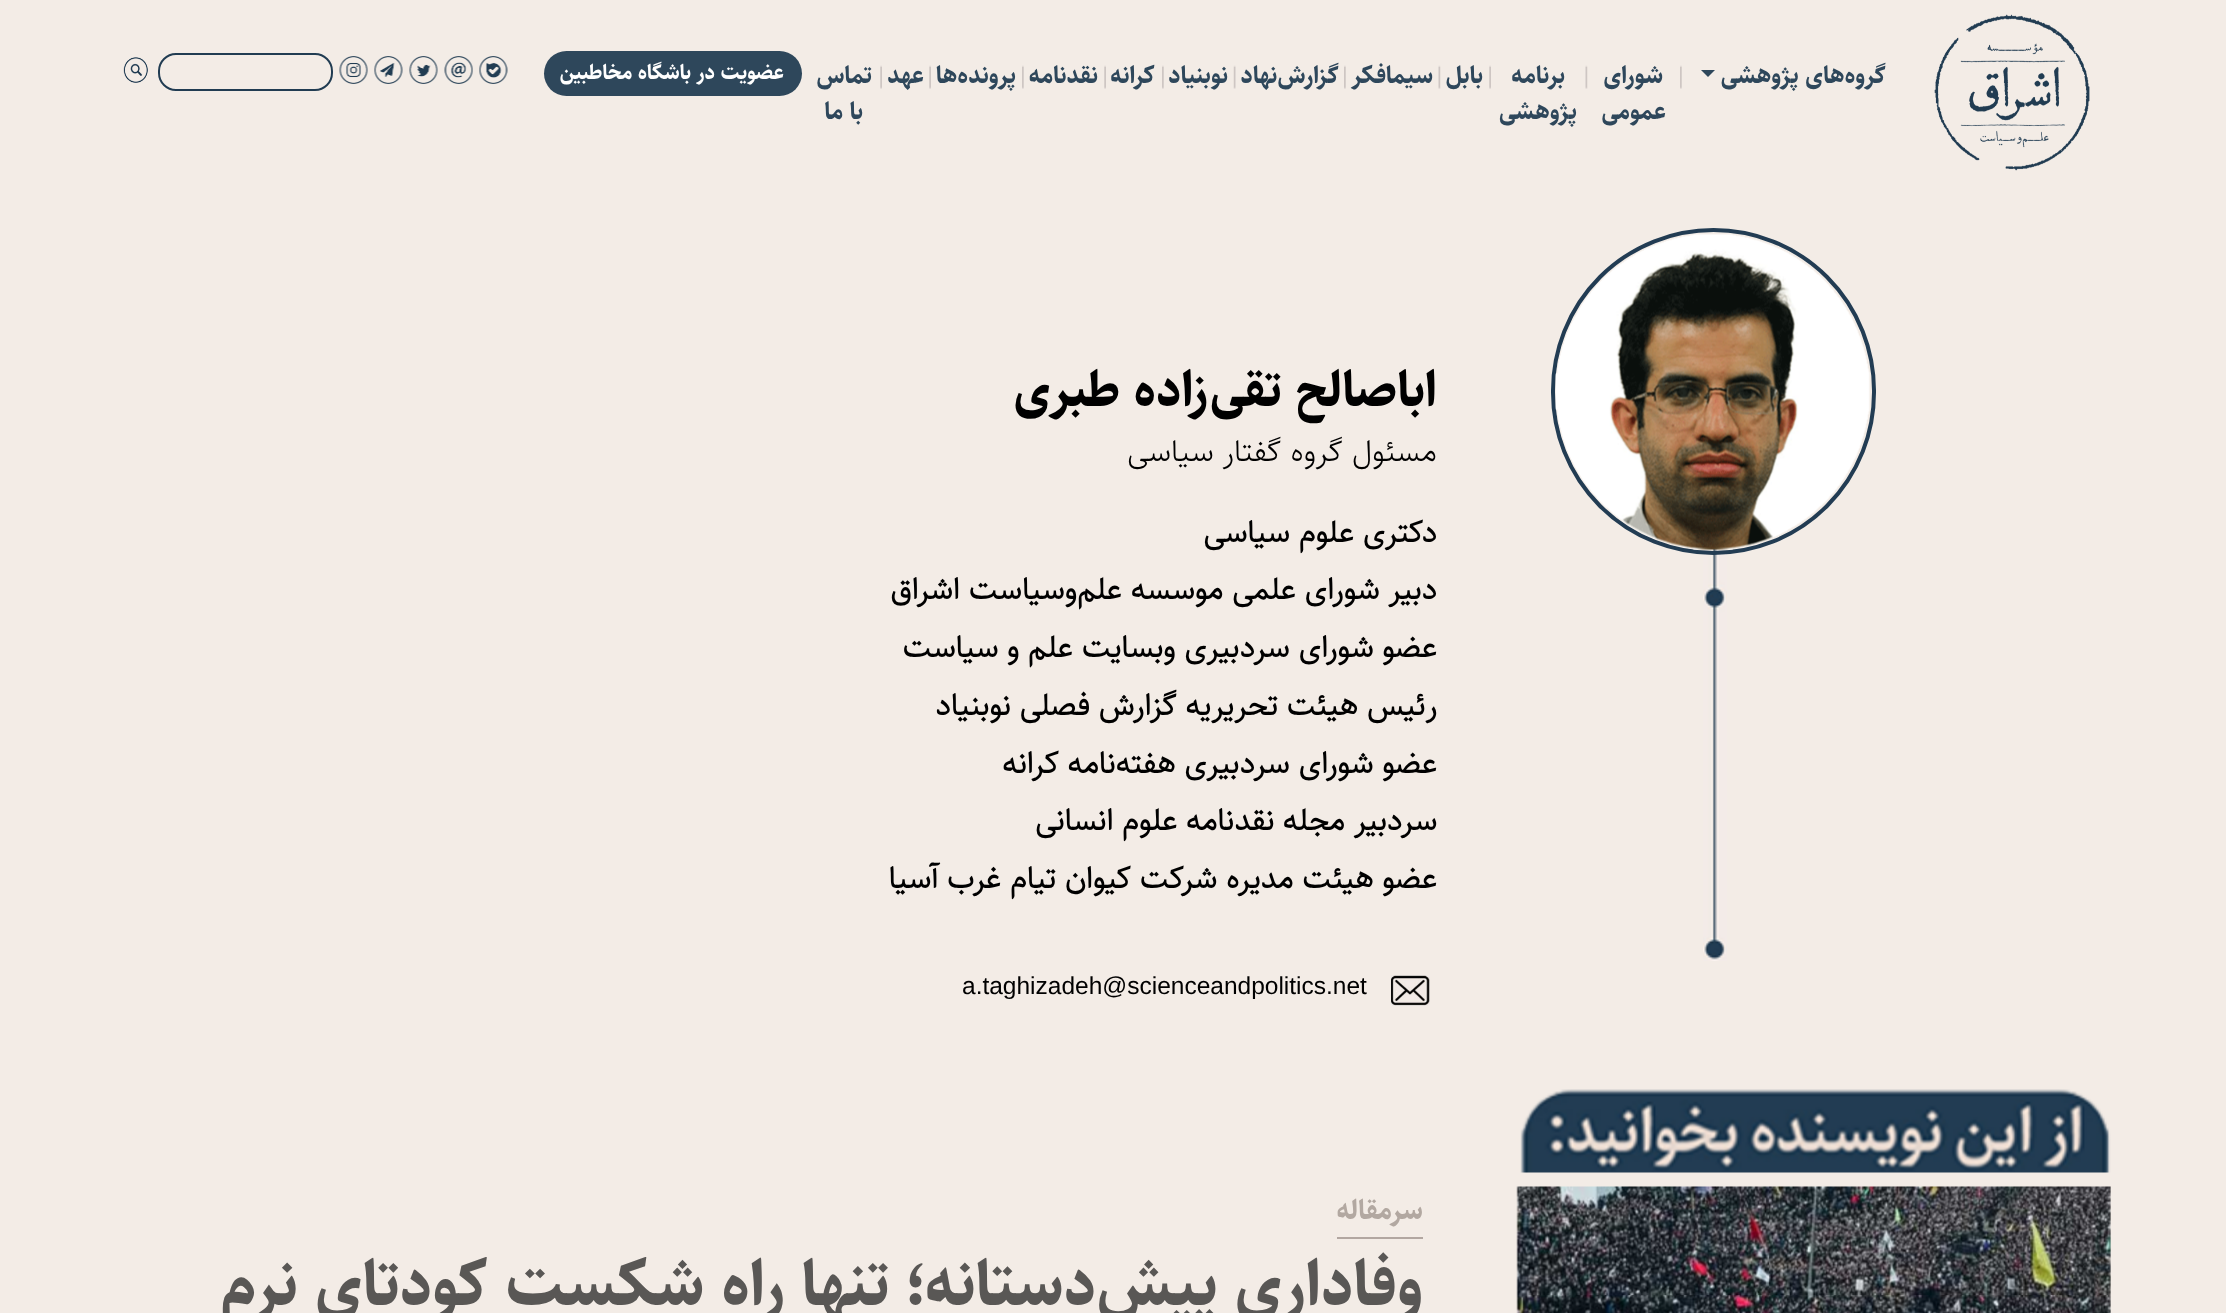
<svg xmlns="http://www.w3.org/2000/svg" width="2226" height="1313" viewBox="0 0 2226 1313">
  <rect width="100%" height="100%" fill="#f3ece6"/>
  <image x="1934" y="14" width="156" height="157" href="img/1.png"/>
  <path d="M1701 70H1715L1708 77Z" fill="#2e475b"/>
  <image x="1680" y="65" width="2" height="24" href="img/2.png"/>
  <image x="1585" y="65" width="3" height="24" href="img/3.png"/>
  <image x="1489" y="65" width="2" height="24" href="img/4.png"/>
  <image x="1438" y="65" width="3" height="24" href="img/3.png"/>
  <image x="1344" y="65" width="2" height="24" href="img/2.png"/>
  <image x="1233" y="65" width="3" height="24" href="img/5.png"/>
  <image x="1162" y="65" width="2" height="24" href="img/2.png"/>
  <image x="1104" y="65" width="2" height="24" href="img/4.png"/>
  <image x="1022" y="65" width="2" height="24" href="img/2.png"/>
  <image x="929" y="65" width="2" height="24" href="img/4.png"/>
  <image x="880" y="65" width="2" height="24" href="img/4.png"/>
  <rect x="544" y="51" width="258" height="45" rx="22.5" fill="#2e475b"/>
  <image x="479" y="56" width="29" height="28" href="img/6.png"/>
  <image x="444" y="56" width="29" height="28" href="img/7.png"/>
  <image x="409" y="56" width="29" height="28" href="img/8.png"/>
  <image x="374" y="56" width="29" height="28" href="img/9.png"/>
  <image x="339" y="56" width="29" height="28" href="img/10.png"/>
  <rect x="159" y="54" width="173" height="36" rx="17" fill="none" stroke="#213c52" stroke-width="2"/>
  <image x="123" y="57" width="25" height="26" href="img/11.png"/>
  <image x="1703" y="549" width="24" height="412" href="img/13.png"/>
  <rect x="1553" y="230" width="321" height="323" rx="160.5" fill="none" stroke="#223c53" stroke-width="4"/>
  <image x="1555" y="233" width="315" height="318" href="img/12.png"/>
  <image x="1391" y="975" width="39" height="31" href="img/14.png"/>
  <image x="1520" y="1089" width="591" height="84" href="img/15.png"/>
  <image x="1516" y="1186" width="595" height="127" href="img/16.png"/>
  <path d="M1337 1237h86v2H1337z" fill="#b2a7a1"/>
  <g font-family="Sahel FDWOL" font-size="24.5" font-weight="bold" direction="rtl" fill="#2e475b">
    <text x="1886" y="83">گروه‌های پژوهشی</text>
    <text x="1663" y="83">شورای</text>
    <text x="1666" y="119">عمومی</text>
    <text x="1565" y="83">برنامه</text>
    <text x="1577" y="119">پژوهشی</text>
    <text x="1483" y="83">بابل</text>
    <text x="1433" y="83">سیمافکر</text>
    <text x="1339" y="83">گزارش‌نهاد</text>
    <text x="1228" y="83">نوبنیاد</text>
    <text x="1155" y="83">کرانه</text>
    <text x="1098" y="83">نقدنامه</text>
    <text x="1016" y="83">پرونده‌ها</text>
    <text x="924" y="83">عهد</text>
    <text x="872" y="83">تماس</text>
    <text x="863" y="119">با ما</text>
  </g>
  <text x="784" y="79" font-family="Sahel FDWOL" font-size="21" font-weight="bold" direction="rtl" fill="#fff">عضویت در باشگاه مخاطبین</text>
  <text x="1437" y="406" font-family="Sahel FDWOL" font-size="50.75" font-weight="bold" direction="rtl" fill="#000">اباصالح تقی‌زاده طبری</text>
  <g font-family="Sahel FDWOL" font-size="31.5" font-weight="300" direction="rtl" fill="#000">
    <text x="1437" y="461">مسئول</text>
    <text x="1343" y="461">گروه گفتار سیاسی</text>
  </g>
  <g font-family="'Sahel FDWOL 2'" font-size="31.5" font-weight="bold" direction="rtl" fill="#000">
    <text x="1437" y="542">دکتری علوم سیاسی</text>
    <text x="1437" y="599">دبیر شورای علمی موسسه علم‌وسیاست اشراق</text>
    <text x="1437" y="657">عضو شورای سردبیری وبسایت علم و سیاست</text>
    <text x="1437" y="715">رئیس هیئت تحریریه گزارش فصلی نوبنیاد</text>
    <text x="1437" y="773">عضو شورای سردبیری هفته‌نامه کرانه</text>
    <text x="1437" y="830">سردبیر مجله نقدنامه علوم انسانی</text>
    <text x="1437" y="888">عضو هیئت مدیره شرکت کیوان تیام غرب آسیا</text>
  </g>
  <text x="962" y="994" font-family="Liberation Sans" font-size="24.5" fill="#000">a.taghizadeh@scienceandpolitics.net</text>
  <text x="1423" y="1219" font-family="Sahel FDWOL" font-size="28" font-weight="bold" direction="rtl" fill="#b2a8a1">سرمقاله</text>
  <text x="1423" y="1305" font-family="Sahel FDWOL" font-size="64.75" font-weight="bold" direction="rtl" fill="#595755">وفاداری پیش‌دستانه؛ تنها راه شکست کودتای نرم</text>
</svg>
